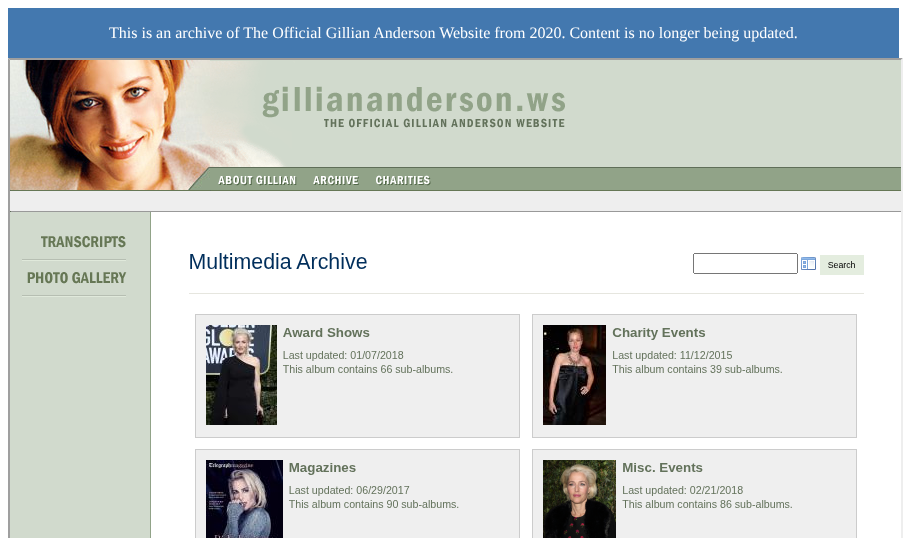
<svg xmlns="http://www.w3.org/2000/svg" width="907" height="538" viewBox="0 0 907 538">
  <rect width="100%" height="100%" fill="#fff"/>
  <path d="M8 8h891v50H8z" fill="#4378af"/>
  <path d="M8 58H903L901 60H10Z" fill="#9f9f9f"/>
  <path d="M8 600V58L10 60V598Z" fill="#9f9f9f"/>
  <image x="10" y="60" width="891" height="478" href="img/1.png"/>
  <path d="M903 58V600L901 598V60Z" fill="#eee"/>
  <text x="109" y="38" font-family="Liberation Serif" font-size="16" fill="#fff">This is an archive of The Official Gillian Anderson Website from 2020. Content is no longer being updated.</text>
</svg>
